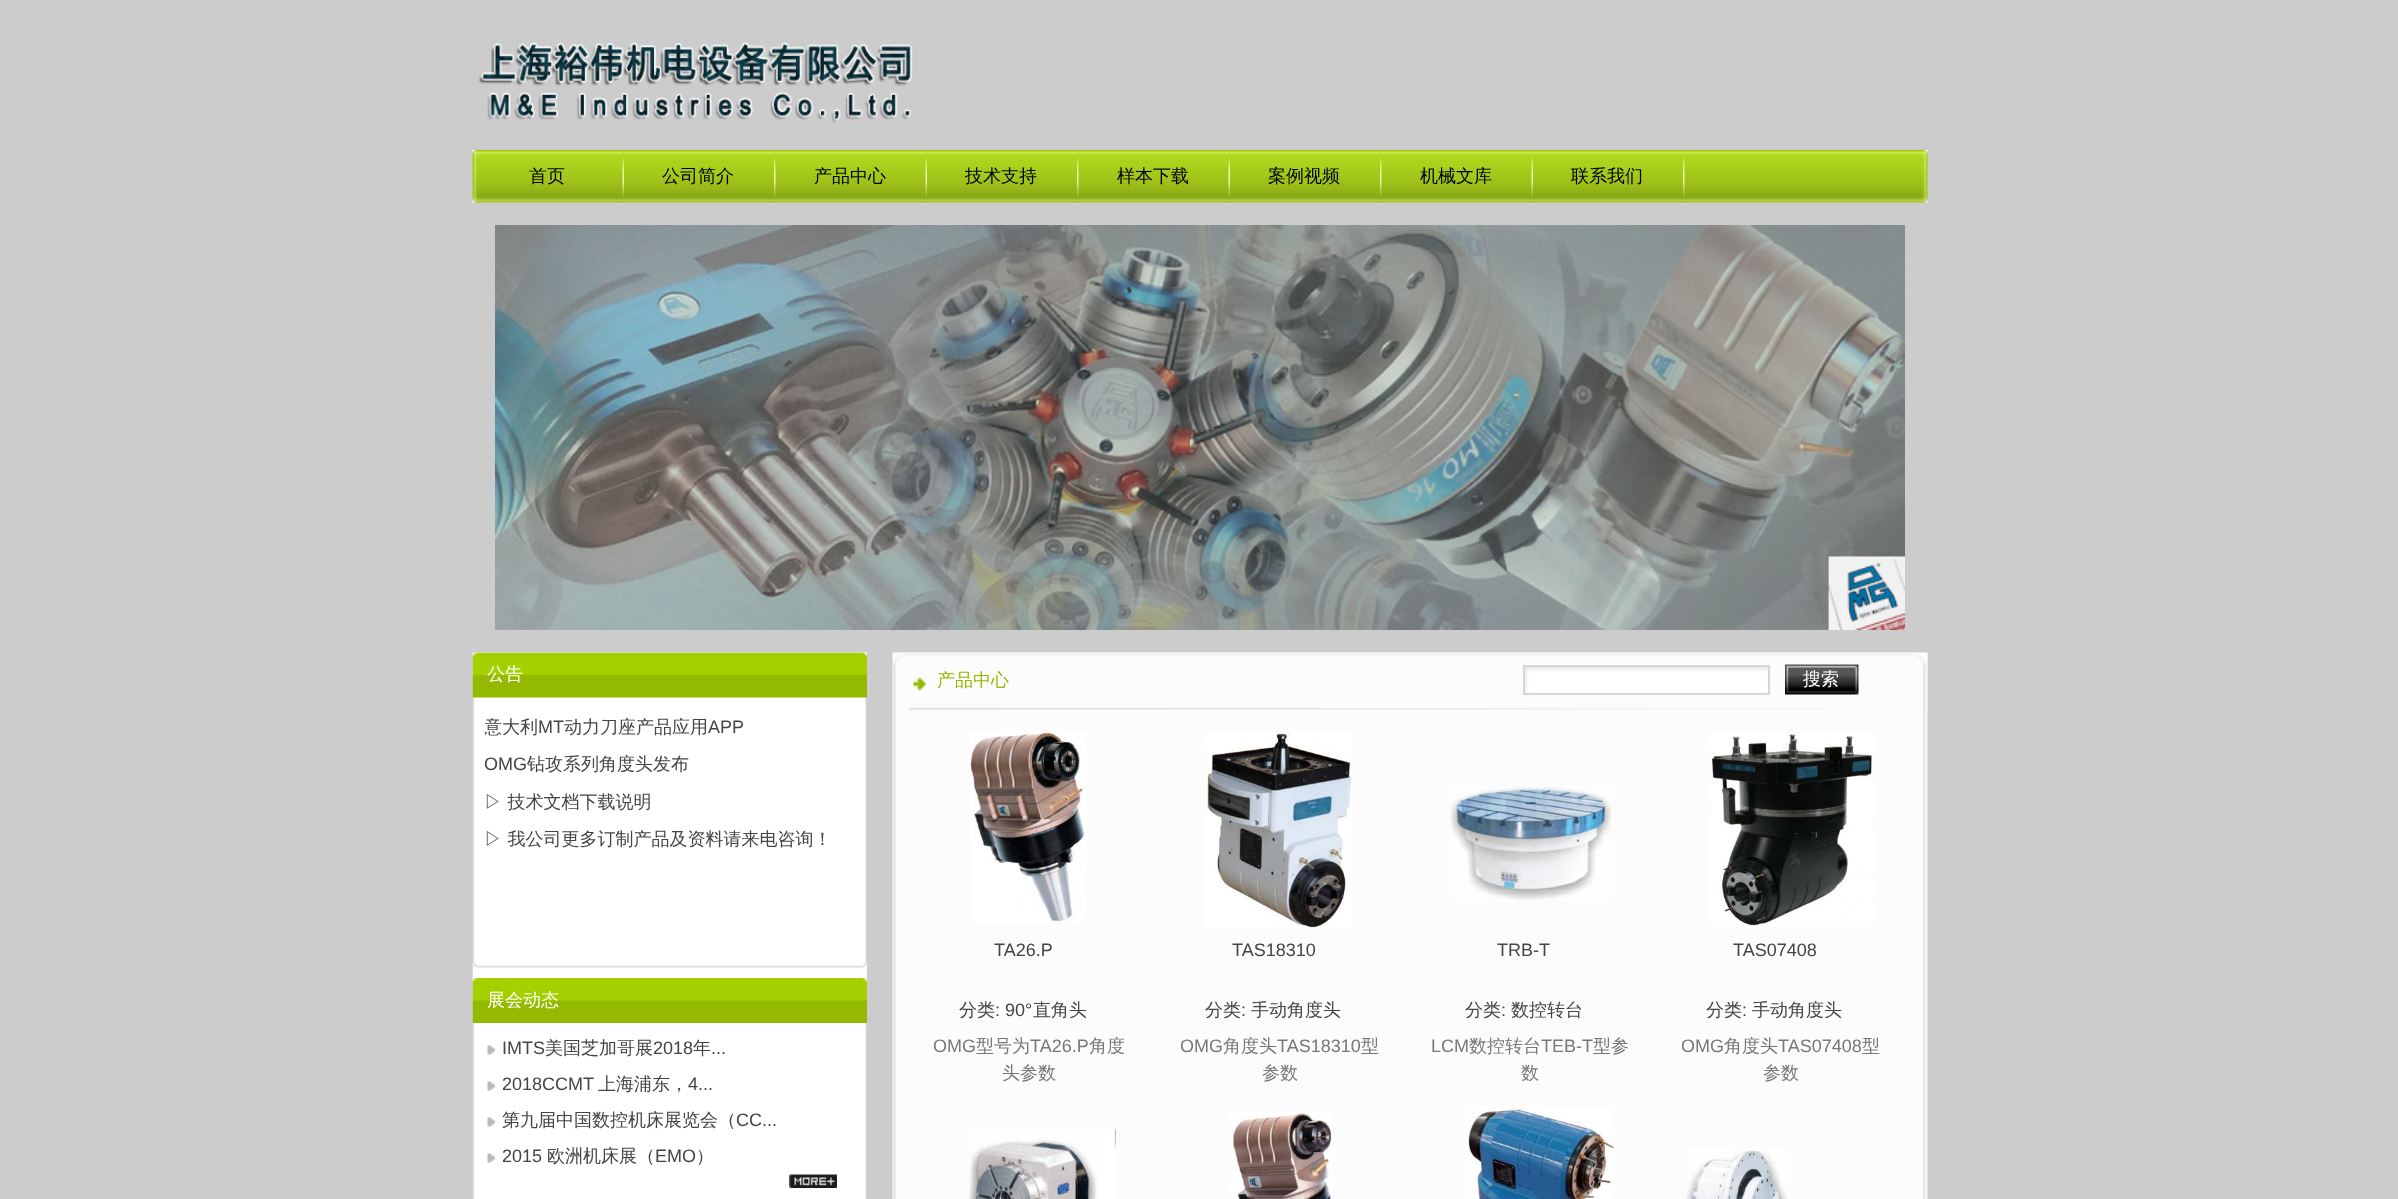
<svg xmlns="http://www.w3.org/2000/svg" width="2398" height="1199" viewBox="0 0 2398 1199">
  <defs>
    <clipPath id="clip1"><path d="M485 710h370v187H485z"/></clipPath>
  </defs>
  <rect width="100%" height="100%" fill="#ccc"/>
  <image x="478" y="42" width="435" height="81" href="img/1.png"/>
  <image x="472" y="150" width="1456" height="53" href="img/2.png"/>
  <image x="622" y="153" width="2" height="50" href="img/3.png"/>
  <image x="774" y="153" width="2" height="50" href="img/4.png"/>
  <image x="925" y="153" width="2" height="50" href="img/3.png"/>
  <image x="1077" y="153" width="2" height="50" href="img/4.png"/>
  <image x="1228" y="153" width="2" height="50" href="img/3.png"/>
  <image x="1380" y="153" width="2" height="50" href="img/4.png"/>
  <image x="1531" y="153" width="2" height="50" href="img/3.png"/>
  <image x="1683" y="153" width="2" height="50" href="img/4.png"/>
  <image x="495" y="225" width="1410" height="405" href="img/5.png"/>
  <image x="472" y="652" width="395" height="547" href="img/6.png"/>
  <image x="472" y="652" width="395" height="46" href="img/7.png"/>
  <image x="472" y="962" width="395" height="16" href="img/8.png"/>
  <image x="472" y="978" width="395" height="45" href="img/9.png"/>
  <image x="487" y="1045" width="8" height="10" href="img/10.png"/>
  <image x="487" y="1081" width="8" height="10" href="img/10.png"/>
  <image x="487" y="1117" width="8" height="10" href="img/10.png"/>
  <image x="487" y="1153" width="8" height="10" href="img/10.png"/>
  <image x="789" y="1174" width="48" height="14" href="img/11.png"/>
  <image x="892" y="652" width="1036" height="547" href="img/12.png"/>
  <image x="892" y="652" width="1036" height="59" href="img/13.png"/>
  <image x="1522" y="664" width="248" height="31" href="img/14.png"/>
  <path d="M1524 666h245v28H1524z" fill="none" stroke="#d6d6d6" stroke-width="2"/>
  <image x="1785" y="664" width="74" height="31" href="img/15.png"/>
  <image x="970" y="731" width="116" height="191" href="img/16.png"/>
  <image x="1206" y="731" width="146" height="197" href="img/17.png"/>
  <image x="1450" y="786" width="162" height="115" href="img/18.png"/>
  <image x="1710" y="731" width="164" height="196" href="img/19.png"/>
  <image x="969" y="1129" width="147" height="70" href="img/20.png"/>
  <image x="1230" y="1112" width="102" height="87" href="img/21.png"/>
  <image x="1465" y="1106" width="149" height="93" href="img/22.png"/>
  <image x="1686" y="1149" width="102" height="50" href="img/23.png"/>
  <g font-family="WenQuanYi Zen Hei" font-size="18" font-weight="500" fill="#000">
    <text x="529" y="182">首页</text>
    <text x="662" y="182">公司简介</text>
    <text x="814" y="182">产品中心</text>
    <text x="965" y="182">技术支持</text>
    <text x="1117" y="182">样本下载</text>
    <text x="1268" y="182">案例视频</text>
    <text x="1420" y="182">机械文库</text>
    <text x="1571" y="182">联系我们</text>
  </g>
  <text x="487" y="680" font-family="WenQuanYi Zen Hei" font-size="18" font-weight="500" fill="#fff">公告</text>
  <g clip-path="url(#clip1)">
    <text x="484" y="733" font-family="WenQuanYi Zen Hei" font-size="18" font-weight="500" fill="#444">意大利</text>
  </g>
  <text x="538" y="733" font-family="Liberation Sans" font-size="18" fill="#444">MT</text>
  <text x="564" y="733" font-family="WenQuanYi Zen Hei" font-size="18" font-weight="500" fill="#444">动力刀座产品应用</text>
  <text x="708" y="733" font-family="Liberation Sans" font-size="18" fill="#444">APP</text>
  <g clip-path="url(#clip1)">
    <text x="484" y="770" font-family="Liberation Sans" font-size="18" fill="#444">OMG</text>
  </g>
  <g font-family="WenQuanYi Zen Hei" font-size="18" font-weight="500" fill="#444">
    <text x="527" y="770">钻攻系列角度头发布</text>
    <text x="484" y="808">▷ 技术文档下载说明</text>
    <text x="484" y="845">▷ 我公司更多订制产品及资料请来电咨询！</text>
  </g>
  <text x="487" y="1006" font-family="WenQuanYi Zen Hei" font-size="18" font-weight="500" fill="#fff">展会动态</text>
  <text x="502" y="1054" font-family="Liberation Sans" font-size="18" fill="#444">IMTS</text>
  <text x="545" y="1054" font-family="WenQuanYi Zen Hei" font-size="18" font-weight="500" fill="#444">美国芝加哥展</text>
  <text x="653" y="1054" font-family="Liberation Sans" font-size="18" fill="#444">2018</text>
  <text x="693" y="1054" font-family="WenQuanYi Zen Hei" font-size="18" font-weight="500" fill="#444">年</text>
  <g font-family="Liberation Sans" font-size="18" fill="#444">
    <text x="711" y="1054">...</text>
    <text x="502" y="1090">2018CCMT</text>
  </g>
  <text x="598" y="1090" font-family="WenQuanYi Zen Hei" font-size="18" font-weight="500" fill="#444">上海浦东，</text>
  <text x="688" y="1090" font-family="Liberation Sans" font-size="18" fill="#444">4...</text>
  <text x="502" y="1126" font-family="WenQuanYi Zen Hei" font-size="18" font-weight="500" fill="#444">第九届中国数控机床展览会（</text>
  <g font-family="Liberation Sans" font-size="18" fill="#444">
    <text x="736" y="1126">CC...</text>
    <text x="502" y="1162">2015</text>
  </g>
  <text x="547" y="1162" font-family="WenQuanYi Zen Hei" font-size="18" font-weight="500" fill="#444">欧洲机床展（</text>
  <text x="655" y="1162" font-family="Liberation Sans" font-size="18" fill="#444">EMO</text>
  <text x="696" y="1162" font-family="WenQuanYi Zen Hei" font-size="18" font-weight="500" fill="#444">）</text>
  <text x="937" y="686" font-family="WenQuanYi Zen Hei" font-size="18" font-weight="500" fill="#93b901">产品中心</text>
  <text x="1803" y="685" font-family="WenQuanYi Zen Hei" font-size="18" font-weight="500" fill="#fff">搜索</text>
  <text x="994" y="956" font-family="Liberation Sans" font-size="18" fill="#444">TA26.P</text>
  <text x="959" y="1016" font-family="WenQuanYi Zen Hei" font-size="18" font-weight="500" fill="#444">分类</text>
  <text x="995" y="1016" font-family="Liberation Sans" font-size="18" fill="#444">: 90°</text>
  <text x="1033" y="1016" font-family="WenQuanYi Zen Hei" font-size="18" font-weight="500" fill="#444">直角头</text>
  <text x="933" y="1052" font-family="Liberation Sans" font-size="18" fill="#777">OMG</text>
  <text x="976" y="1052" font-family="WenQuanYi Zen Hei" font-size="18" font-weight="500" fill="#777">型号为</text>
  <text x="1030" y="1052" font-family="Liberation Sans" font-size="18" fill="#777">TA26.P</text>
  <g font-family="WenQuanYi Zen Hei" font-size="18" font-weight="500" fill="#777">
    <text x="1089" y="1052">角度</text>
    <text x="1002" y="1079">头参数</text>
  </g>
  <text x="1232" y="956" font-family="Liberation Sans" font-size="18" fill="#444">TAS18310</text>
  <text x="1205" y="1016" font-family="WenQuanYi Zen Hei" font-size="18" font-weight="500" fill="#444">分类</text>
  <text x="1241" y="1016" font-family="Liberation Sans" font-size="18" fill="#444">:</text>
  <text x="1251" y="1016" font-family="WenQuanYi Zen Hei" font-size="18" font-weight="500" fill="#444">手动角度头</text>
  <text x="1180" y="1052" font-family="Liberation Sans" font-size="18" fill="#777">OMG</text>
  <text x="1223" y="1052" font-family="WenQuanYi Zen Hei" font-size="18" font-weight="500" fill="#777">角度头</text>
  <text x="1277" y="1052" font-family="Liberation Sans" font-size="18" fill="#777">TAS18310</text>
  <g font-family="WenQuanYi Zen Hei" font-size="18" font-weight="500" fill="#777">
    <text x="1361" y="1052">型</text>
    <text x="1262" y="1079">参数</text>
  </g>
  <text x="1497" y="956" font-family="Liberation Sans" font-size="18" fill="#444">TRB-T</text>
  <text x="1465" y="1016" font-family="WenQuanYi Zen Hei" font-size="18" font-weight="500" fill="#444">分类</text>
  <text x="1501" y="1016" font-family="Liberation Sans" font-size="18" fill="#444">:</text>
  <text x="1511" y="1016" font-family="WenQuanYi Zen Hei" font-size="18" font-weight="500" fill="#444">数控转台</text>
  <text x="1431" y="1052" font-family="Liberation Sans" font-size="18" fill="#777">LCM</text>
  <text x="1469" y="1052" font-family="WenQuanYi Zen Hei" font-size="18" font-weight="500" fill="#777">数控转台</text>
  <text x="1541" y="1052" font-family="Liberation Sans" font-size="18" fill="#777">TEB-T</text>
  <g font-family="WenQuanYi Zen Hei" font-size="18" font-weight="500" fill="#777">
    <text x="1593" y="1052">型参</text>
    <text x="1521" y="1079">数</text>
  </g>
  <text x="1733" y="956" font-family="Liberation Sans" font-size="18" fill="#444">TAS07408</text>
  <text x="1706" y="1016" font-family="WenQuanYi Zen Hei" font-size="18" font-weight="500" fill="#444">分类</text>
  <text x="1742" y="1016" font-family="Liberation Sans" font-size="18" fill="#444">:</text>
  <text x="1752" y="1016" font-family="WenQuanYi Zen Hei" font-size="18" font-weight="500" fill="#444">手动角度头</text>
  <text x="1681" y="1052" font-family="Liberation Sans" font-size="18" fill="#777">OMG</text>
  <text x="1724" y="1052" font-family="WenQuanYi Zen Hei" font-size="18" font-weight="500" fill="#777">角度头</text>
  <text x="1778" y="1052" font-family="Liberation Sans" font-size="18" fill="#777">TAS07408</text>
  <g font-family="WenQuanYi Zen Hei" font-size="18" font-weight="500" fill="#777">
    <text x="1862" y="1052">型</text>
    <text x="1763" y="1079">参数</text>
  </g>
</svg>
